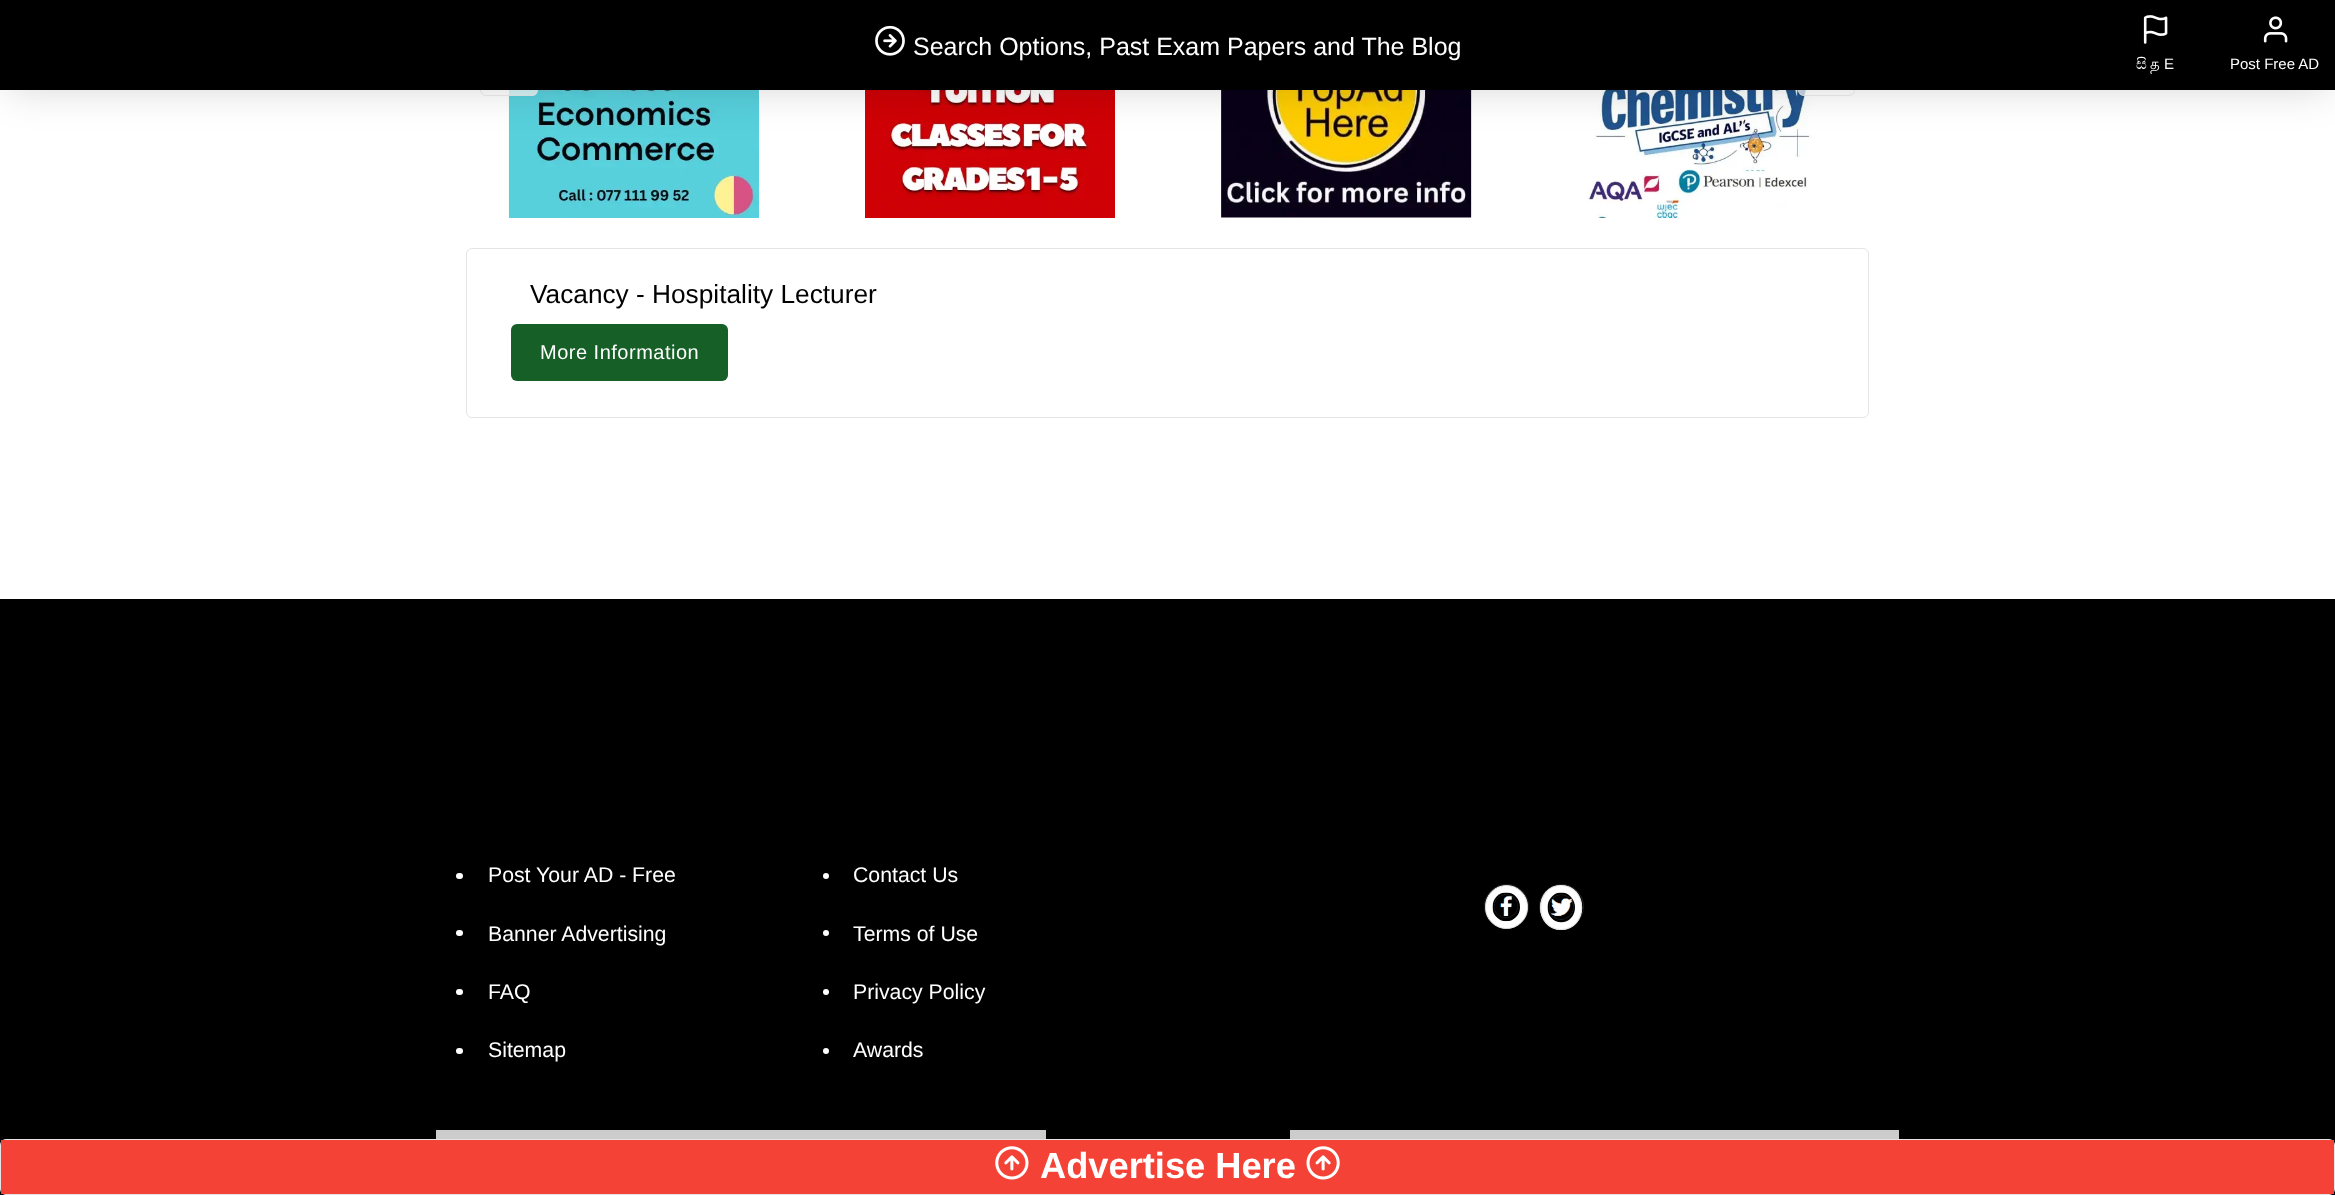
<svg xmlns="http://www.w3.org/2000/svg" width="2335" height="1195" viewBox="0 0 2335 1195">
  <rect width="100%" height="100%" fill="#fff"/>
  <image x="508" y="90" width="251" height="128" href="img/4.png"/>
  <rect x="480" y="39" width="58" height="57" rx="6" fill="#ffffffbf"/>
  <rect x="480.5" y="39.5" width="57" height="56" rx="5.5" fill="none" stroke="#e5e5e5bf"/>
  <image x="1587" y="90" width="226" height="128" href="img/7.png"/>
  <rect x="1798" y="39" width="57" height="57" rx="6" fill="#ffffffbf"/>
  <rect x="1798.5" y="39.5" width="56" height="56" rx="5.5" fill="none" stroke="#e5e5e5bf"/>
  <image x="865" y="90" width="250" height="128" href="img/5.png"/>
  <image x="1221" y="90" width="251" height="128" href="img/6.png"/>
  <path d="M8 16h2320v75H8z" fill="#00000026" filter="blur(19px)"/>
  <path d="M0 0h2335v90H0z" fill="#000"/>
  <image x="875" y="25" width="30" height="31" href="img/1.png"/>
  <image x="2143" y="15" width="25" height="29" href="img/2.png"/>
  <image x="2263" y="16" width="25" height="27" href="img/3.png"/>
  <rect x="466.5" y="248.5" width="1402" height="169" rx="5.5" fill="none" stroke="#e5e5e5"/>
  <rect x="511" y="324" width="217" height="57" rx="6" fill="#165f26"/>
  <path d="M0 599h2335v596H0z" fill="#000"/>
  <rect x="456" y="873" width="7" height="6" rx="3" fill="#fff"/>
  <rect x="456" y="930" width="7" height="6" rx="3" fill="#fff"/>
  <rect x="456" y="989" width="7" height="6" rx="3" fill="#fff"/>
  <rect x="456" y="1048" width="7" height="6" rx="3" fill="#fff"/>
  <circle cx="826" cy="876" r="3" fill="#fff"/>
  <circle cx="826" cy="933" r="3" fill="#fff"/>
  <circle cx="826" cy="992" r="3" fill="#fff"/>
  <circle cx="826" cy="1051" r="3" fill="#fff"/>
  <circle cx="1506.5" cy="906.5" r="22" fill="none" stroke="#212121"/>
  <rect x="1485.5" y="885.5" width="42" height="43" rx="21" fill="#fff" stroke="#e5e5e5"/>
  <image x="1492" y="892" width="28" height="30" href="img/8.png"/>
  <circle cx="1561.5" cy="906.5" r="22" fill="none" stroke="#212121"/>
  <ellipse cx="1561" cy="907.5" rx="21" ry="22.5" fill="#fff"/>
  <path d="M1561 885.5C1588.5 885.5 1588.5 929.5 1561 929.5C1534 929.5 1534 885.5 1561 885.5Z" fill="none" stroke="#e5e5e5" stroke-width="1.2"/>
  <image x="1547" y="892" width="28" height="31" href="img/9.png"/>
  <path d="M436 1130h610v9H436z" fill="#ccc"/>
  <path d="M1290 1130h609v9H1290z" fill="#ccc"/>
  <rect x="0.5" y="1139.5" width="2334" height="55" rx="5.5" fill="none" stroke="#e5e5e5"/>
  <path d="M1 1140h2333v54H1z" fill="#f44336"/>
  <image x="995" y="1146" width="34" height="34" href="img/10.png"/>
  <image x="1306" y="1146" width="34" height="34" href="img/11.png"/>
  <text x="913" y="55" font-family="Liberation Sans" font-size="25" fill="#fff">Search Options, Past Exam Papers and The Blog</text>
  <text x="2136" y="69" font-family="FreeSerif" font-size="15" fill="#fff">සි</text>
  <text x="2150" y="69" font-family="Lohit Tamil" font-size="15" fill="#fff">த</text>
  <g font-family="Liberation Sans" font-size="15" fill="#fff">
    <text x="2164" y="69">E</text>
    <text x="2230" y="69">Post Free AD</text>
  </g>
  <text x="530" y="303" font-family="Liberation Sans" font-size="26.25" fill="#000">Vacancy - Hospitality Lecturer</text>
  <text x="540" y="359" font-family="Liberation Sans" font-size="20" letter-spacing="0.5" fill="#fff">More Information</text>
  <g font-family="Liberation Sans" font-size="21.25" fill="#fff">
    <text x="488" y="882">Post Your AD - Free</text>
    <text x="488" y="941">Banner Advertising</text>
    <text x="488" y="999">FAQ</text>
    <text x="488" y="1057">Sitemap</text>
    <text x="853" y="882">Contact Us</text>
    <text x="853" y="941">Terms of Use</text>
    <text x="853" y="999">Privacy Policy</text>
    <text x="853" y="1057">Awards</text>
  </g>
  <text x="1040" y="1178" font-family="Liberation Sans" font-size="36.25" font-weight="bold" fill="#fff">Advertise Here</text>
</svg>
